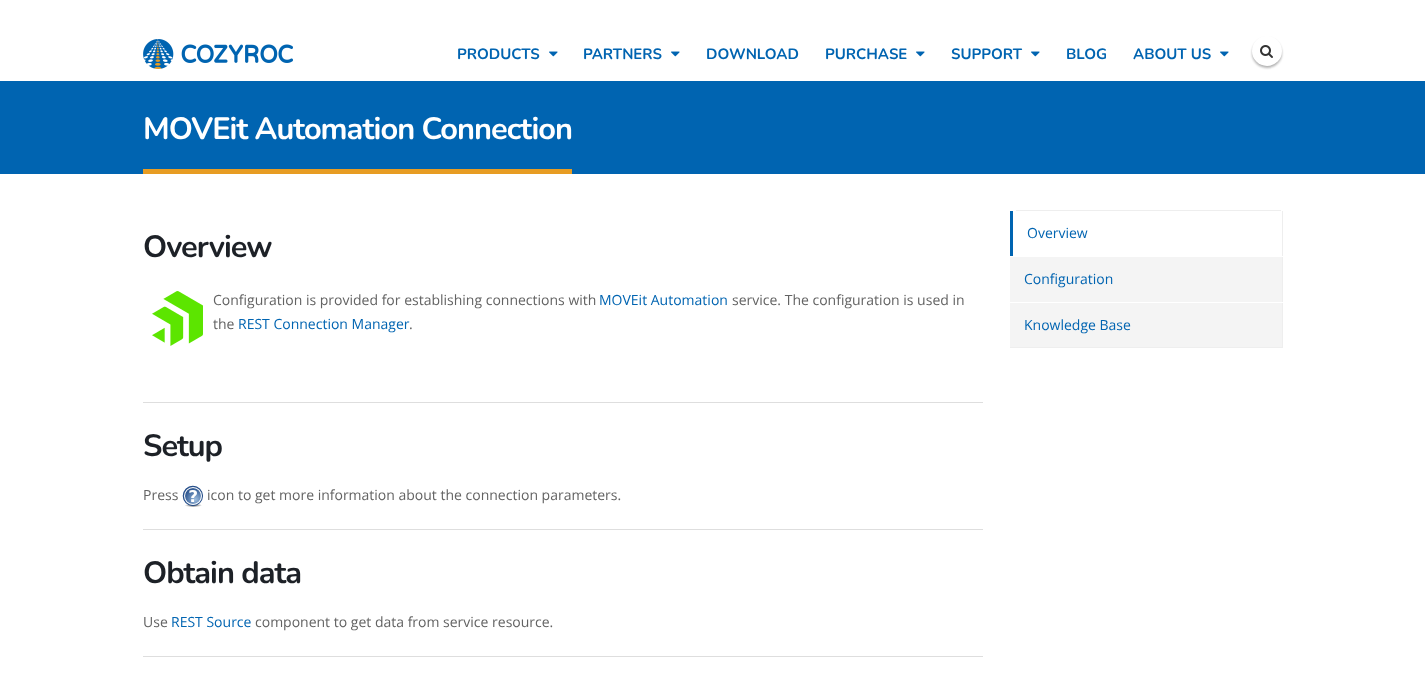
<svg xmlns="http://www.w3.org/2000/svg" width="1425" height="678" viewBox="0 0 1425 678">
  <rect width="100%" height="100%" fill="#fff"/>
  <image x="143" y="39" width="150" height="30" href="img/1.png"/>
  <image x="549" y="51" width="9" height="6" href="img/2.png"/>
  <image x="671" y="51" width="9" height="6" href="img/2.png"/>
  <image x="916" y="51" width="9" height="6" href="img/2.png"/>
  <image x="1031" y="51" width="9" height="6" href="img/2.png"/>
  <image x="1220" y="51" width="9" height="6" href="img/2.png"/>
  <rect x="1252" y="38" width="30" height="30" rx="15" fill="#0000004d" filter="blur(1px)"/>
  <circle cx="1267" cy="51" r="15" fill="#fff"/>
  <image x="1260" y="45" width="13" height="13" href="img/3.png"/>
  <path d="M0 81h1425v93H0z" fill="#0064b1"/>
  <path d="M143 169h429v5H143z" fill="#e79c23"/>
  <image x="152" y="291" width="51" height="55" href="img/4.png"/>
  <path d="M143 402h840v1H143z" fill="#dedede"/>
  <image x="182" y="485" width="21" height="22" href="img/5.png"/>
  <path d="M143 529h840v1H143z" fill="#dedede"/>
  <path d="M143 656h840v1H143z" fill="#dedede"/>
  <path d="M1016 210h265v1H1016z" fill="#eee"/>
  <path d="M1282 211h1v45H1282z" fill="#eee"/>
  <path d="M1010 211h3v45H1010z" fill="#0064b1"/>
  <path d="M1010 257h272v45H1010z" fill="#f4f4f4"/>
  <path d="M1282 257h1v45H1282z" fill="#eee"/>
  <path d="M1010 303h272v44H1010z" fill="#f4f4f4"/>
  <path d="M1282 303h1v45H1282z" fill="#eee"/>
  <path d="M1010 347h273v1H1010z" fill="#eee"/>
  <g font-family="Nunito" font-size="15" font-weight="bold" fill="#0064b1">
    <text x="457" y="59">PRODUCTS</text>
    <text x="583" y="59">PARTNERS</text>
    <text x="706" y="59">DOWNLOAD</text>
    <text x="825" y="59">PURCHASE</text>
    <text x="951" y="59">SUPPORT</text>
    <text x="1066" y="59">BLOG</text>
    <text x="1133" y="59">ABOUT US</text>
  </g>
  <text x="143" y="139" font-family="Nunito" font-size="30.75" font-weight="bold" letter-spacing="-1" fill="#fff">MOVEit Automation Connection</text>
  <text x="143" y="257" font-family="Nunito" font-size="30.75" font-weight="bold" letter-spacing="-1" fill="#1d2127">Overview</text>
  <text x="213" y="305" font-family="Open Sans" font-size="14" fill="#636363">Configuration is provided for establishing connections with</text>
  <text x="599" y="305" font-family="Open Sans" font-size="14" fill="#0064b1">MOVEit Automation</text>
  <g font-family="Open Sans" font-size="14" fill="#636363">
    <text x="732" y="305">service. The configuration is used in</text>
    <text x="213" y="329">the</text>
  </g>
  <text x="238" y="329" font-family="Open Sans" font-size="14" fill="#0064b1">REST Connection Manager</text>
  <text x="409" y="329" font-family="Open Sans" font-size="14" fill="#636363">.</text>
  <text x="143" y="456" font-family="Nunito" font-size="30.75" font-weight="bold" letter-spacing="-1" fill="#1d2127">Setup</text>
  <g font-family="Open Sans" font-size="14" fill="#636363">
    <text x="143" y="500">Press</text>
    <text x="207" y="500">icon to get more information about the connection parameters.</text>
  </g>
  <text x="143" y="583" font-family="Nunito" font-size="30.75" font-weight="bold" letter-spacing="-1" fill="#1d2127">Obtain data</text>
  <text x="143" y="627" font-family="Open Sans" font-size="14" fill="#636363">Use</text>
  <text x="171" y="627" font-family="Open Sans" font-size="14" fill="#0064b1">REST Source</text>
  <text x="255" y="627" font-family="Open Sans" font-size="14" fill="#636363">component to get data from service resource.</text>
  <g font-family="Open Sans" font-size="14" fill="#0064b1">
    <text x="1027" y="238">Overview</text>
    <text x="1024" y="284">Configuration</text>
    <text x="1024" y="330">Knowledge Base</text>
  </g>
</svg>
